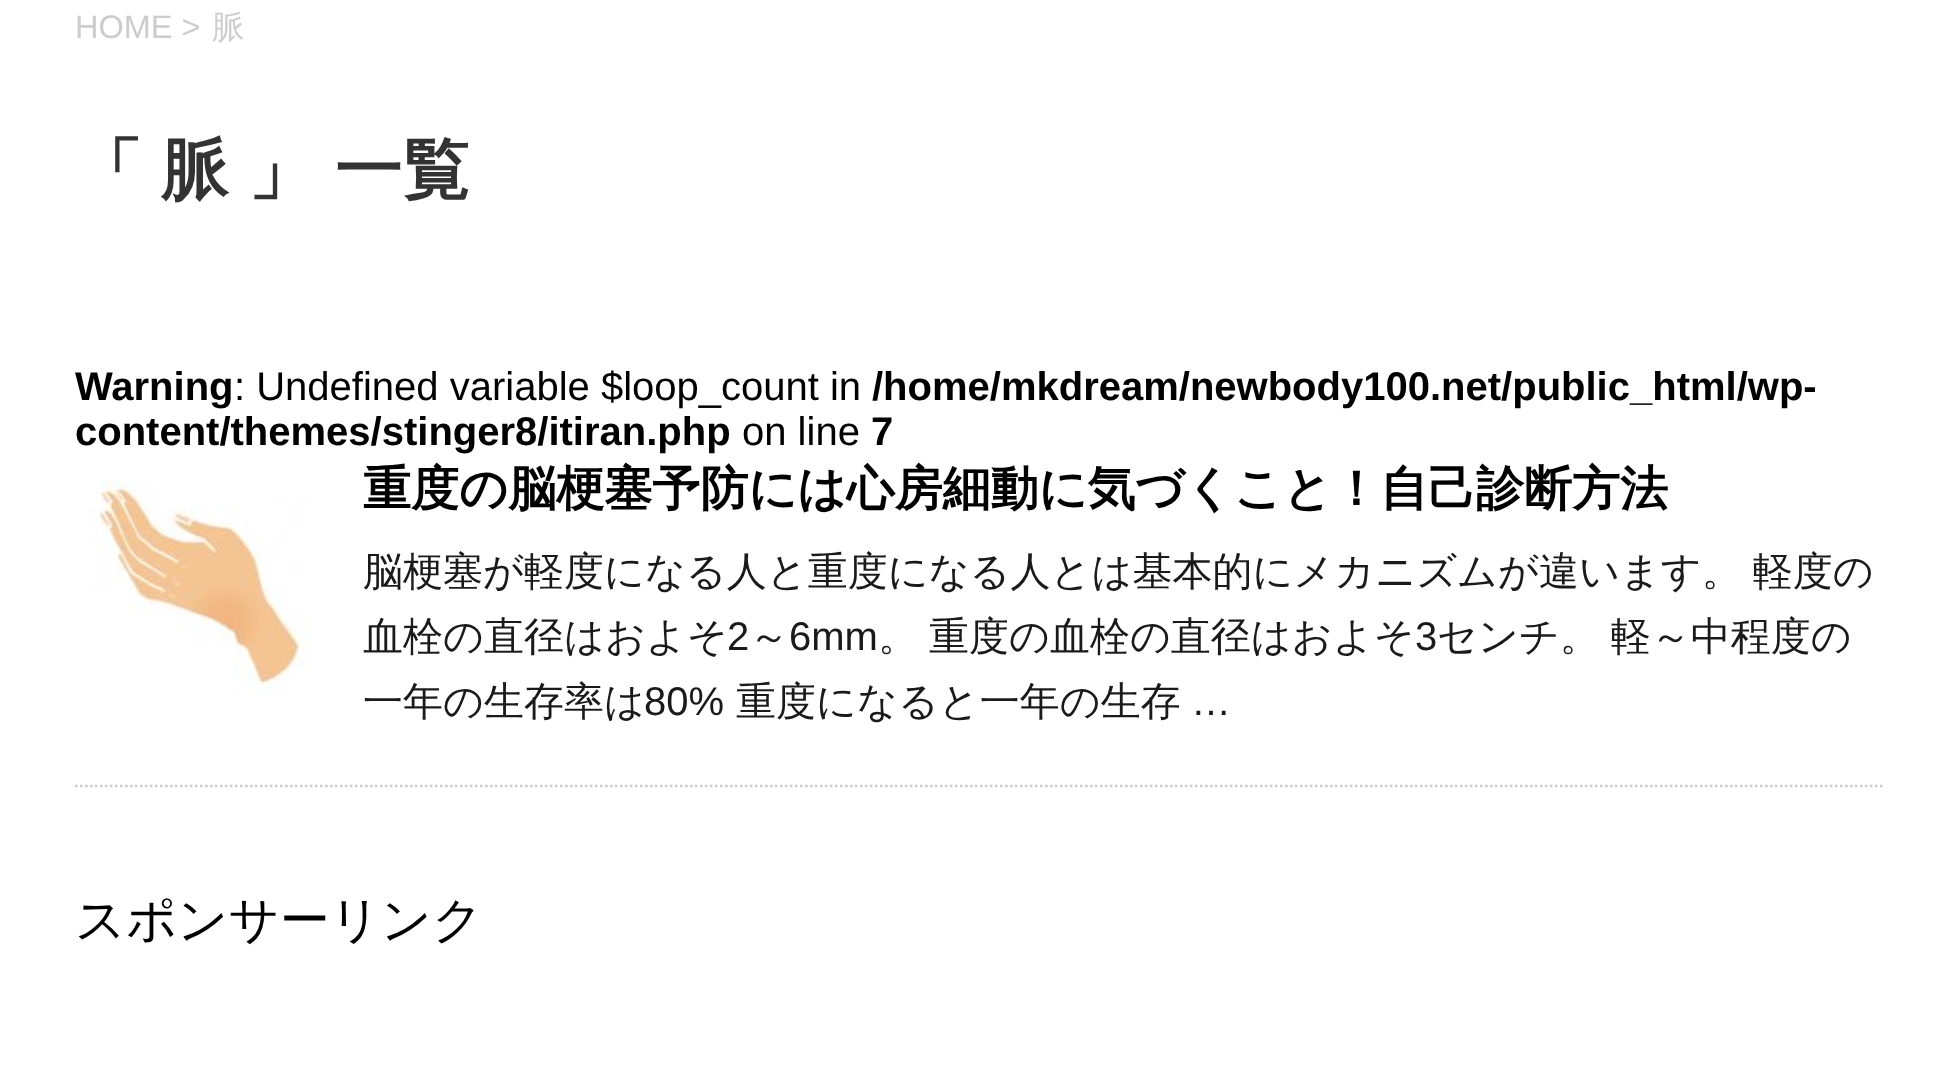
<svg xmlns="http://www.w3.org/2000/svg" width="1957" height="1084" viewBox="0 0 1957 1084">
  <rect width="100%" height="100%" fill="#fff"/>
  <path d="M75 786H1882.5" fill="none" stroke="#ccc" stroke-width="2.5" stroke-dasharray="2.5 2.5"/>
  <image x="91" y="480" width="218" height="214" href="img/1.png"/>
  <text x="75" y="38" font-family="Liberation Sans" font-size="32.5" fill="#ccc">HOME &gt;</text>
  <text x="212" y="38" font-family="WenQuanYi Zen Hei" font-size="32.5" font-weight="500" fill="#ccc">脈</text>
  <g font-family="WenQuanYi Zen Hei" font-size="67.5" font-weight="bold" fill="#333">
    <text x="75" y="193">「</text>
    <text x="161" y="193">脈</text>
    <text x="248" y="193" word-spacing="-1">」 一覧</text>
  </g>
  <text x="75" y="400" font-family="Liberation Sans" font-size="40" font-weight="bold" fill="#000">Warning</text>
  <text x="234" y="400" font-family="Liberation Sans" font-size="40" fill="#000">: Undefined variable $loop_count in</text>
  <g font-family="Liberation Sans" font-size="40" font-weight="bold" fill="#000">
    <text x="872" y="400">/home/mkdream/newbody100.net/public_html/wp-</text>
    <text x="75" y="445">content/themes/stinger8/itiran.php</text>
  </g>
  <text x="742" y="445" font-family="Liberation Sans" font-size="40" fill="#000">on line</text>
  <text x="871" y="445" font-family="Liberation Sans" font-size="40" font-weight="bold" fill="#000">7</text>
  <text x="363" y="505" font-family="WenQuanYi Zen Hei" font-size="48" font-weight="bold" fill="#000">重度の脳梗塞予防には心房細動に気づくこと！自己診断方法</text>
  <g font-family="WenQuanYi Zen Hei" font-size="40" font-weight="500" fill="#1a1a1a">
    <text x="363" y="585" word-spacing="-1">脳梗塞が軽度になる人と重度になる人とは基本的にメカニズムが違います。 軽度の</text>
    <text x="363" y="650">血栓の直径はおよそ</text>
  </g>
  <text x="727" y="650" font-family="Liberation Sans" font-size="40" fill="#1a1a1a">2</text>
  <text x="749" y="650" font-family="WenQuanYi Zen Hei" font-size="40" font-weight="500" fill="#1a1a1a">～</text>
  <text x="789" y="650" font-family="Liberation Sans" font-size="40" fill="#1a1a1a">6mm</text>
  <text x="878" y="650" word-spacing="-1" font-family="WenQuanYi Zen Hei" font-size="40" font-weight="500" fill="#1a1a1a">。 重度の血栓の直径はおよそ</text>
  <text x="1415" y="650" font-family="Liberation Sans" font-size="40" fill="#1a1a1a">3</text>
  <g font-family="WenQuanYi Zen Hei" font-size="40" font-weight="500" fill="#1a1a1a">
    <text x="1437" y="650" word-spacing="-1">センチ。 軽～中程度の</text>
    <text x="363" y="715">一年の生存率は</text>
  </g>
  <text x="644" y="715" font-family="Liberation Sans" font-size="40" fill="#1a1a1a">80%</text>
  <text x="736" y="715" font-family="WenQuanYi Zen Hei" font-size="40" font-weight="500" fill="#1a1a1a">重度になると一年の生存</text>
  <text x="1191" y="715" font-family="Liberation Sans" font-size="40" fill="#1a1a1a">…</text>
  <text x="75" y="937" font-family="WenQuanYi Zen Hei" font-size="50" font-weight="500" fill="#000">スポンサーリンク</text>
</svg>
